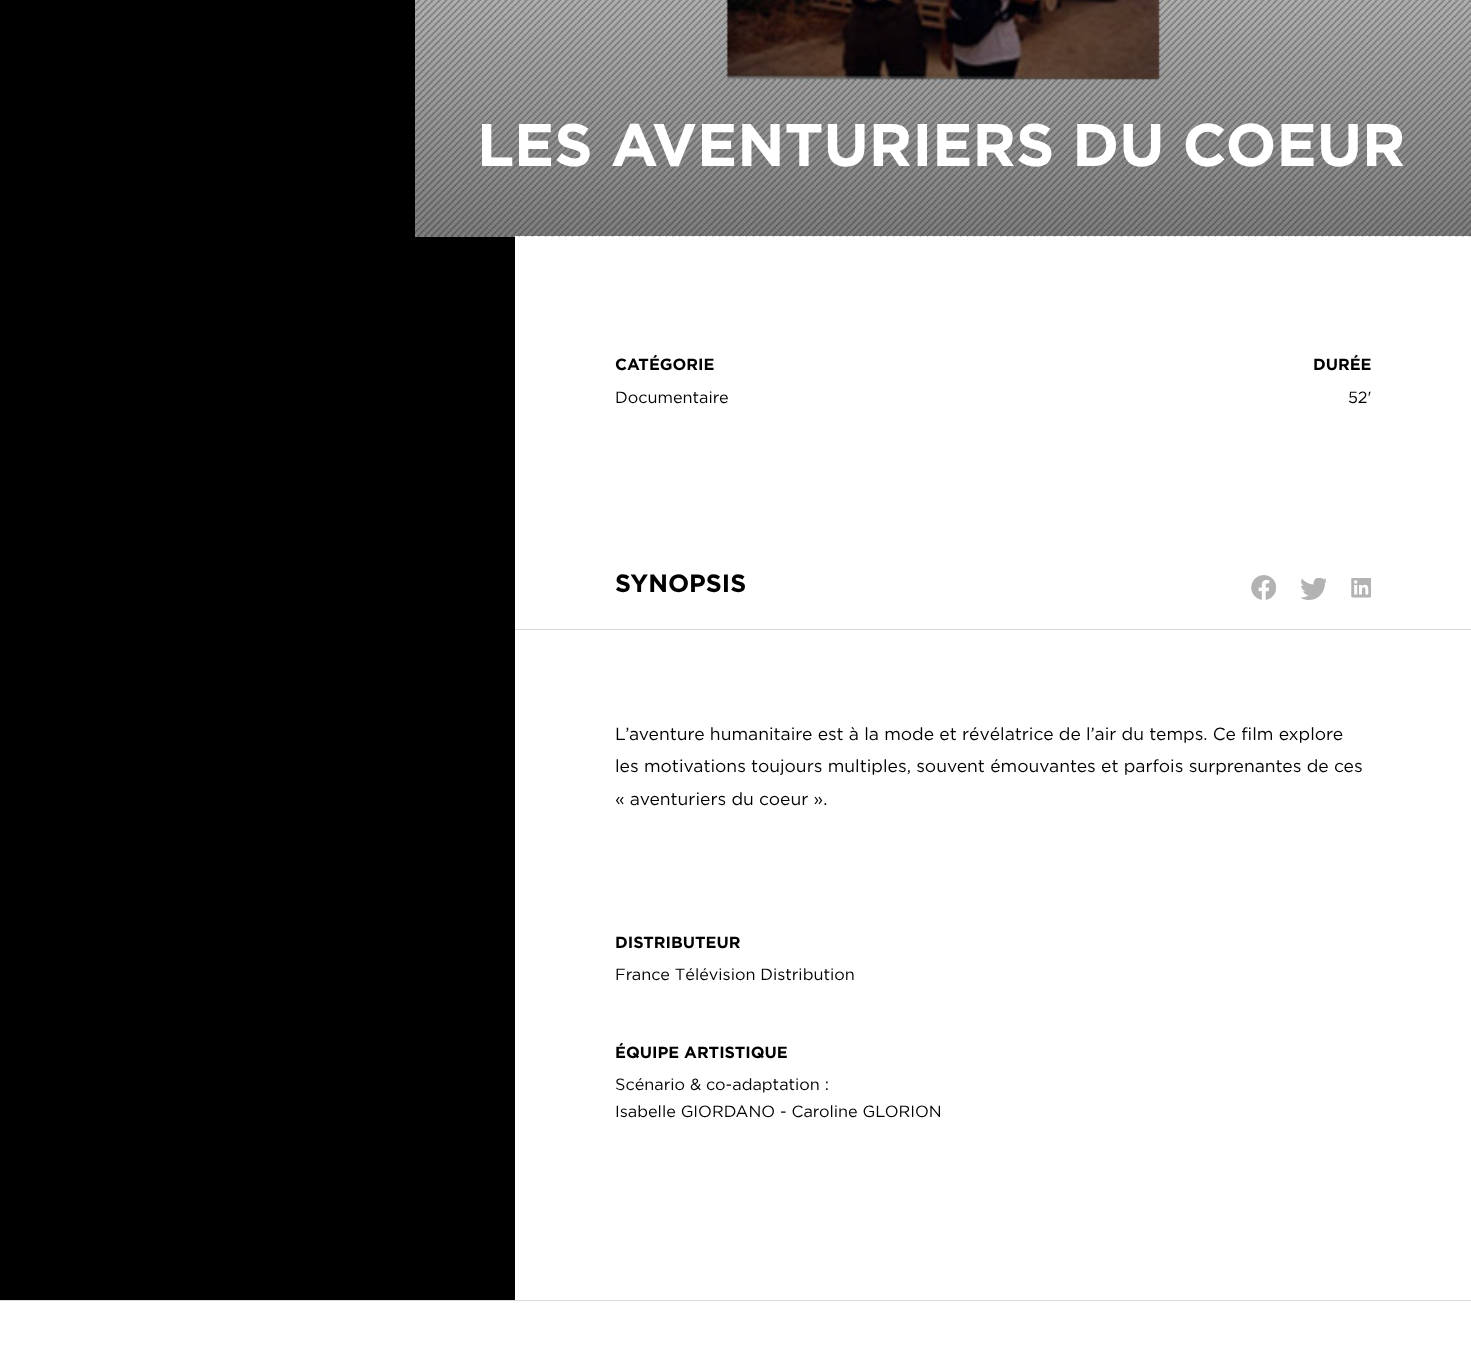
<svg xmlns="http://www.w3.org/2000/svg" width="1471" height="1356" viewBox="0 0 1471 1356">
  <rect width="100%" height="100%" fill="#000"/>
  <path d="M515 236h956v1064H515z" fill="#fff"/>
  <image x="415" y="0" width="1056" height="237" href="img/1.png"/>
  <path d="M515 629h956v1H515z" fill="#d9d9d9"/>
  <image x="1251" y="575" width="25" height="25" href="img/2.png"/>
  <image x="1301" y="578" width="25" height="22" href="img/3.png"/>
  <image x="1351" y="578" width="20" height="20" href="img/4.png"/>
  <path d="M0 1301h1471v55H0z" fill="#fff"/>
  <path d="M0 1300h1471v1H0z" fill="#d9d9d9"/>
  <text x="477" y="166" font-family="Gotham" font-size="60" font-weight="bold" fill="#fff">LES AVENTURIERS DU COEUR</text>
  <text x="615" y="370" font-family="Gotham" font-size="16.25" font-weight="bold" fill="#000">CATÉGORIE</text>
  <text x="615" y="403" font-family="Gotham" font-size="16.25" fill="#000">Documentaire</text>
  <text x="1313" y="370" font-family="Gotham" font-size="16.25" font-weight="bold" fill="#000">DURÉE</text>
  <text x="1348" y="403" font-family="Gotham" font-size="16.25" fill="#000">52'</text>
  <text x="615" y="592" font-family="Gotham" font-size="25" font-weight="bold" fill="#000">SYNOPSIS</text>
  <g font-family="Gotham" font-size="17.5" fill="#000">
    <text x="615" y="740">L’aventure humanitaire est à la mode et révélatrice de l’air du temps. Ce film explore</text>
    <text x="615" y="772">les motivations toujours multiples, souvent émouvantes et parfois surprenantes de ces</text>
    <text x="615" y="805">« aventuriers du coeur ».</text>
  </g>
  <text x="615" y="948" font-family="Gotham" font-size="16.25" font-weight="bold" fill="#000">DISTRIBUTEUR</text>
  <text x="615" y="980" font-family="Gotham" font-size="16.25" fill="#000">France Télévision Distribution</text>
  <text x="615" y="1058" font-family="Gotham" font-size="16.25" font-weight="bold" fill="#000">ÉQUIPE ARTISTIQUE</text>
  <g font-family="Gotham" font-size="16.25" fill="#000">
    <text x="615" y="1090">Scénario &amp; co-adaptation :</text>
    <text x="615" y="1117">Isabelle GIORDANO - Caroline GLORION</text>
  </g>
</svg>
